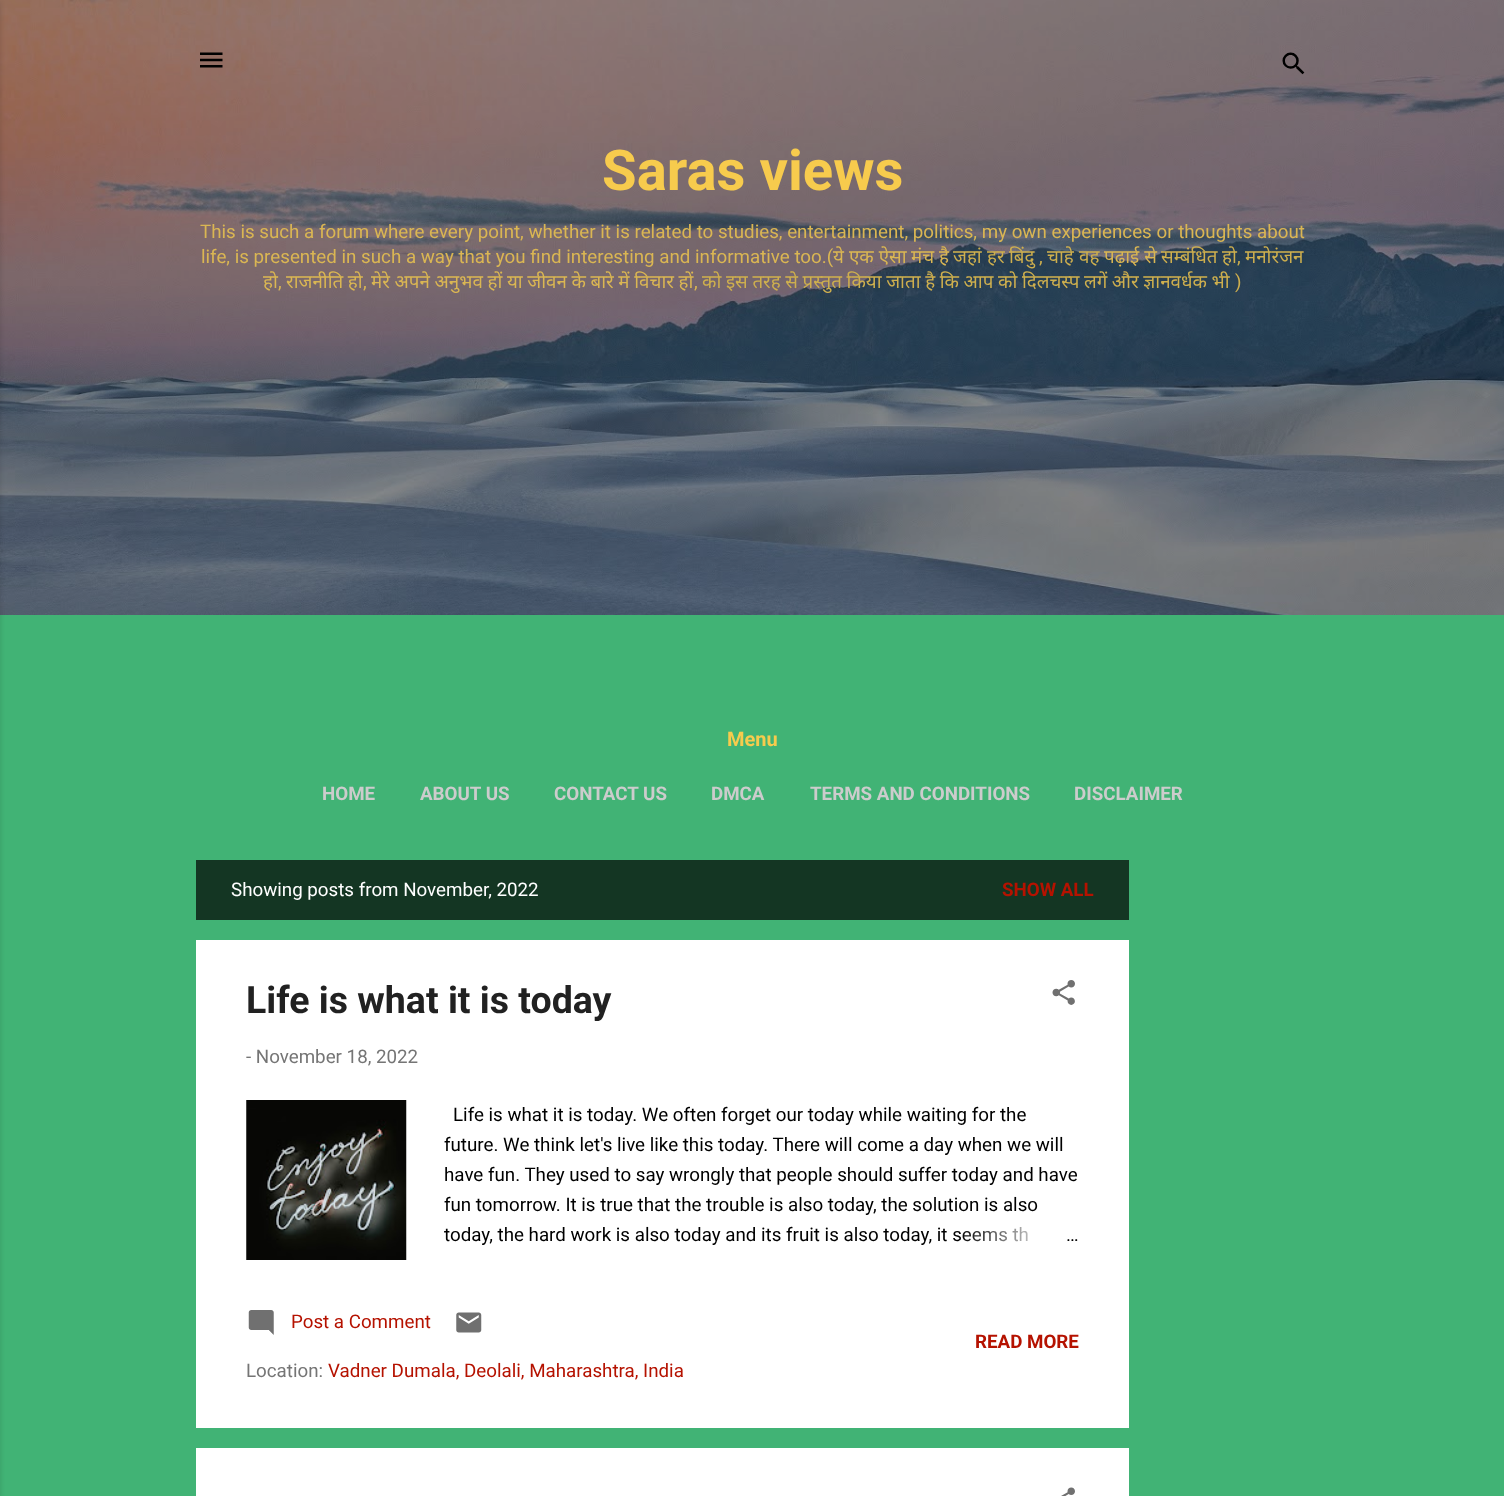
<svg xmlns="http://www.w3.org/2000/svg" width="1504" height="1496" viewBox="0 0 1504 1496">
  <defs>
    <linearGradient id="g1" gradientUnits="userSpaceOnUse" x1="1079" y1="1235" x2="959" y2="1235"><stop offset="0" stop-color="#fff"/><stop offset="0.2" stop-color="#fff"/><stop offset="1" stop-color="#fff" stop-opacity="0"/></linearGradient>
  </defs>
  <rect width="100%" height="100%" fill="#41b375"/>
  <image x="0" y="0" width="1504" height="615" href="img/1.png"/>
  <path d="M-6 1h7v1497H-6z" fill="#0000001a" filter="blur(2px)"/>
  <image x="200" y="52" width="23" height="16" href="img/2.png"/>
  <image x="1282" y="52" width="23" height="23" href="img/3.png"/>
  <path d="M196 860h933v60H196z" fill="#143623"/>
  <path d="M196 940h933v488H196z" fill="#fff"/>
  <image x="1052" y="980" width="23" height="25" href="img/4.png"/>
  <image x="246" y="1100" width="161" height="160" href="img/5.png"/>
  <image x="248" y="1310" width="26" height="25" href="img/6.png"/>
  <image x="456" y="1312" width="26" height="21" href="img/7.png"/>
  <path d="M196 1448h933v48H196z" fill="#fff"/>
  <image x="1061" y="1487" width="14" height="9" href="img/8.png"/>
  <text x="602" y="190" font-family="Roboto" font-size="56.25" font-weight="bold" fill="#f7cb4d">Saras views</text>
  <g font-family="Roboto" font-size="18.75" fill="#dab653">
    <text x="200" y="238">This is such a forum where every point, whether it is related to studies, entertainment, politics, my own experiences or thoughts about</text>
    <text x="201" y="263">life, is presented in such a way that you find interesting and informative too.(</text>
  </g>
  <g font-family="Noto Sans" font-size="18.75" fill="#dab653">
    <text x="833" y="263">ये</text>
    <text x="849" y="263">एक ऐसा</text>
    <text x="911" y="263">मंच</text>
    <text x="939" y="263">है</text>
  </g>
  <g font-family="Noto Sans" font-size="18.75" fill="#ceaf4e">
    <text x="953" y="263">जहां</text>
    <text x="987" y="263">हर</text>
    <text x="1009" y="263">बिंदु</text>
  </g>
  <text x="1039" y="263" font-family="Roboto" font-size="18.75" fill="#ceaf4e">,</text>
  <g font-family="Noto Sans" font-size="18.75" fill="#ceaf4e">
    <text x="1047" y="263">चाहे</text>
    <text x="1079" y="263">वह</text>
  </g>
  <text x="1104" y="263" font-family="Noto Sans" font-size="18.75" fill="#dab653">पढ़ाई से</text>
  <g font-family="Noto Sans" font-size="18.75" fill="#ceaf4e">
    <text x="1161" y="263">सम्बंधित</text>
    <text x="1222" y="263">हो</text>
  </g>
  <text x="1237" y="263" font-family="Roboto" font-size="18.75" fill="#ceaf4e">,</text>
  <text x="1245" y="263" font-family="Noto Sans" font-size="18.75" fill="#ceaf4e">मनोरंजन</text>
  <text x="263" y="288" font-family="Noto Sans" font-size="18.75" fill="#dab653">हो</text>
  <text x="278" y="288" font-family="Roboto" font-size="18.75" fill="#dab653">,</text>
  <text x="286" y="288" word-spacing="-0.25" font-family="Noto Sans" font-size="18.75" fill="#dab653">राजनीति हो</text>
  <text x="702" y="288" word-spacing="-0.25" font-family="Noto Sans" font-size="18.75" fill="#ceaf4e">को इस तरह से प्रस्तुत किया जाता है कि आप को दिलचस्प लगें और ज्ञानवर्धक भी</text>
  <text x="1235" y="288" font-family="Roboto" font-size="18.75" fill="#ceaf4e">)</text>
  <text x="363" y="288" font-family="Roboto" font-size="18.75" fill="#dab653">,</text>
  <text x="371" y="288" word-spacing="-0.25" font-family="Noto Sans" font-size="18.75" fill="#dab653">मेरे अपने अनुभव हों या जीवन के बारे में विचार हों</text>
  <text x="694" y="288" font-family="Roboto" font-size="18.75" fill="#dab653">,</text>
  <text x="727" y="746" font-family="Roboto" font-size="20" font-weight="bold" fill="#f7cb4d">Menu</text>
  <g font-family="Roboto" font-size="18.75" font-weight="bold" fill="#ccc">
    <text x="322" y="800">HOME</text>
    <text x="420" y="800">ABOUT US</text>
    <text x="554" y="800">CONTACT US</text>
    <text x="711" y="800">DMCA</text>
    <text x="810" y="800">TERMS AND CONDITIONS</text>
    <text x="1074" y="800">DISCLAIMER</text>
  </g>
  <text x="231" y="896" font-family="Roboto" font-size="18.75" fill="#fff">Showing posts from November, 2022</text>
  <text x="1002" y="896" font-family="Roboto" font-size="18.75" font-weight="bold" fill="#b51200">SHOW ALL</text>
  <text x="246" y="1013" font-family="Roboto" font-size="37.5" font-weight="bold" fill="#212121">Life is what it is today</text>
  <text x="246" y="1063" font-family="Roboto" font-size="18.75" fill="#757575">- November 18, 2022</text>
  <g font-family="Roboto" font-size="18.75" fill="#000">
    <text x="453" y="1121">Life is what it is today. We often forget our today while waiting for the</text>
    <text x="444" y="1151">future. We think let's live like this today. There will come a day when we will</text>
    <text x="444" y="1181">have fun. They used to say wrongly that people should suffer today and have</text>
    <text x="444" y="1211">fun tomorrow. It is true that the trouble is also today, the solution is also</text>
    <text x="444" y="1241">today, the hard work is also today and its fruit is also today, it seems th</text>
  </g>
  <path d="M962 1226h66v16H962z" fill="url(#g1)"/>
  <text x="1066" y="1241" font-family="Roboto" font-size="18.75" fill="#000">…</text>
  <text x="291" y="1328" font-family="Roboto" font-size="18.75" fill="#b51200">Post a Comment</text>
  <text x="246" y="1377" font-family="Roboto" font-size="18.75" fill="#757575">Location:</text>
  <text x="328" y="1377" font-family="Roboto" font-size="18.75" fill="#b51200">Vadner Dumala, Deolali, Maharashtra, India</text>
  <text x="975" y="1348" font-family="Roboto" font-size="18.75" font-weight="bold" fill="#b51200">READ MORE</text>
</svg>
